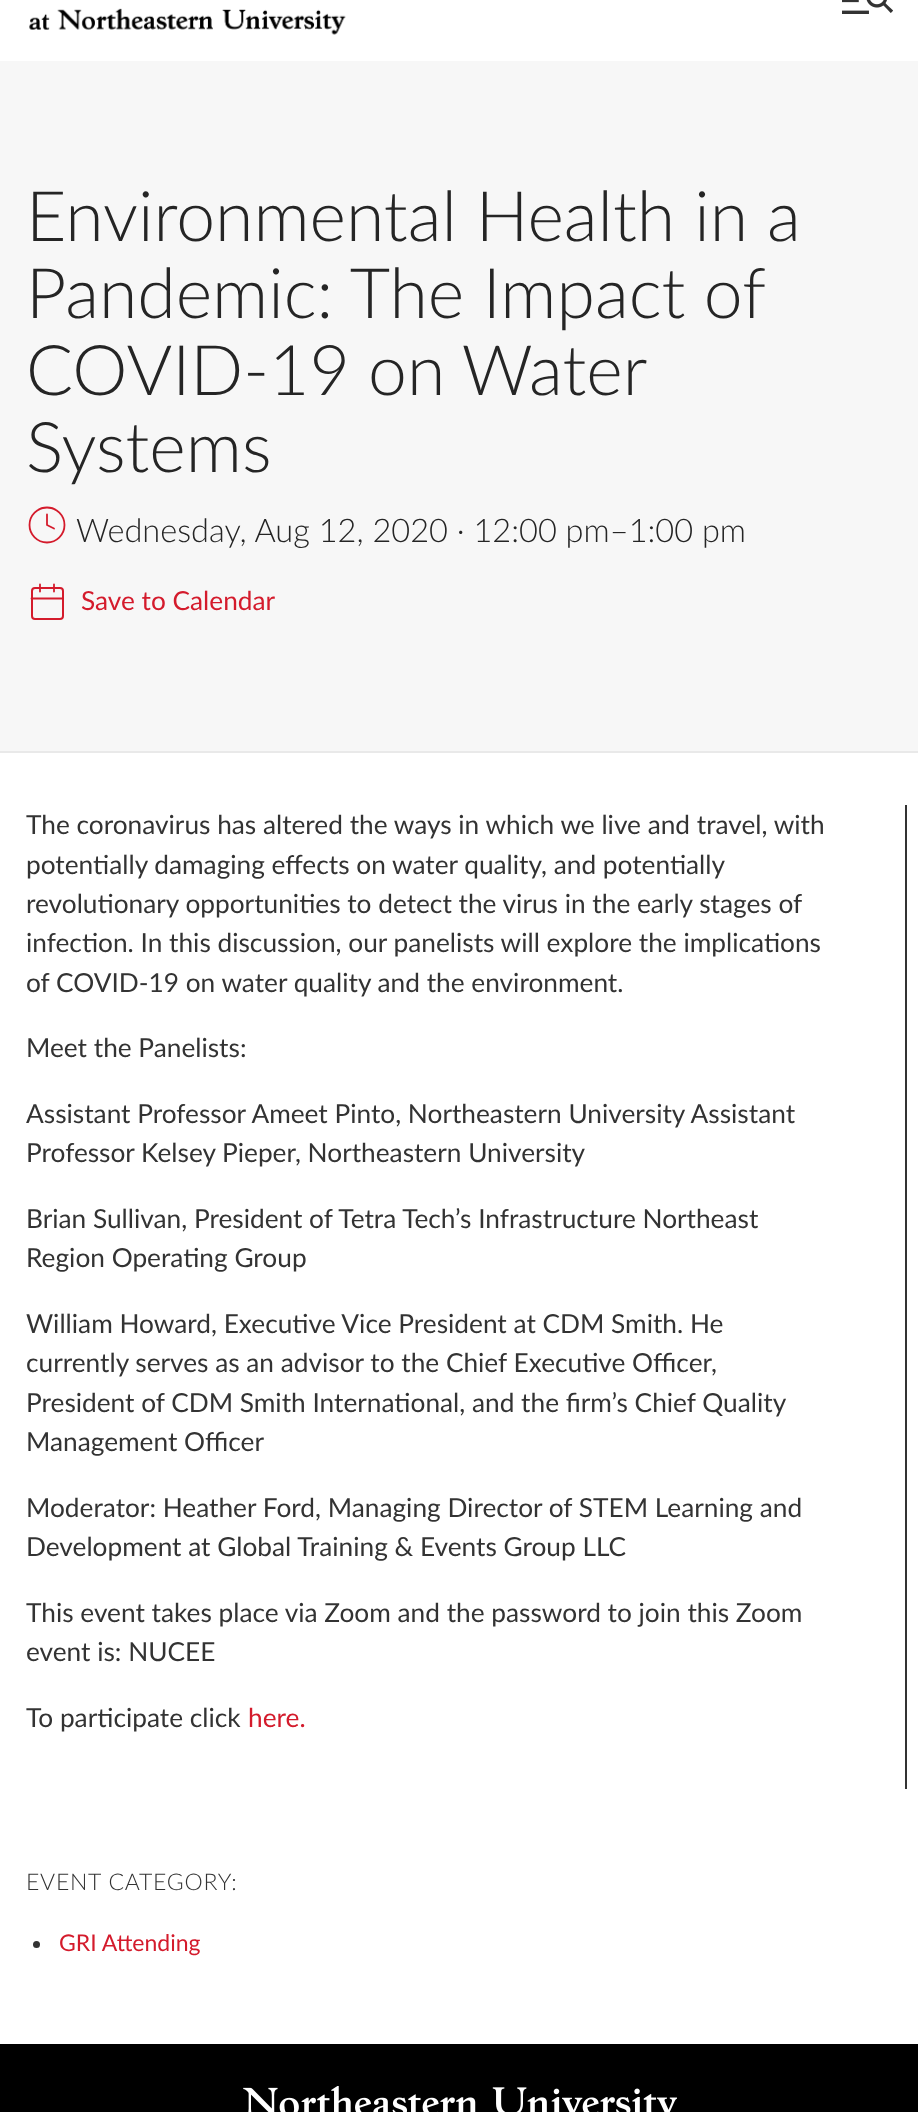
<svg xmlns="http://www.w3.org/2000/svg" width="918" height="2112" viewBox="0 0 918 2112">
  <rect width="100%" height="100%" fill="#fff"/>
  <image x="29" y="8" width="317" height="27" href="img/1.png"/>
  <image x="842" y="0" width="51" height="14" href="img/2.png"/>
  <path d="M0 61h918v690H0z" fill="#f7f7f7"/>
  <path d="M0 751h918v2H0z" fill="#e9e9e9"/>
  <circle cx="47" cy="525" r="17.5" fill="none" stroke="#d41b2c" stroke-width="1.8"/>
  <path d="M47 514.5V525L54 528.5" fill="none" stroke="#d41b2c" stroke-width="1.8" stroke-linecap="round" stroke-linejoin="round"/>
  <rect x="32" y="588" width="31" height="31" rx="3" fill="none" stroke="#d41b2c" stroke-width="2"/>
  <path d="M54 584.5V591.5M40 584.5V591.5M31.5 598.5H63" fill="none" stroke="#d41b2c" stroke-width="1.8" stroke-linecap="round" stroke-linejoin="round"/>
  <path d="M905 805h2v984H905z" fill="#333"/>
  <circle cx="36.5" cy="1944.5" r="3.5" fill="#333"/>
  <path d="M0 2044h918v68H0z" fill="#000"/>
  <image x="243" y="2086" width="434" height="26" href="img/3.png"/>
  <g font-family="Lato" font-size="69.75" font-weight="300" fill="#252525">
    <text x="26" y="241">Environmental Health in a</text>
    <text x="26" y="318" word-spacing="-0.5">Pandemic: The Impact of</text>
    <text x="26" y="395" word-spacing="-1">COVID-19 on Water</text>
    <text x="26" y="472">Systems</text>
  </g>
  <text x="76" y="542" font-family="Lato" font-size="32.55" font-weight="300" fill="#252525">Wednesday, Aug 12, 2020 · 12:00 pm–1:00 pm</text>
  <text x="81" y="610" font-family="Lato" font-size="26.25" fill="#d41b2c">Save to Calendar</text>
  <g font-family="Lato" font-size="26.25" fill="#333">
    <text x="26" y="834">The coronavirus has altered the ways in which we live and travel, with</text>
    <text x="26" y="874">potentially damaging effects on water quality, and potentially</text>
    <text x="26" y="913">revolutionary opportunities to detect the virus in the early stages of</text>
    <text x="26" y="952">infection. In this discussion, our panelists will explore the implications</text>
    <text x="26" y="992">of COVID-19 on water quality and the environment.</text>
    <text x="26" y="1057">Meet the Panelists:</text>
    <text x="26" y="1123">Assistant Professor Ameet Pinto, Northeastern University Assistant</text>
    <text x="26" y="1162">Professor Kelsey Pieper, Northeastern University</text>
    <text x="26" y="1228">Brian Sullivan, President of Tetra Tech’s Infrastructure Northeast</text>
    <text x="26" y="1267">Region Operating Group</text>
    <text x="26" y="1333">William Howard, Executive Vice President at CDM Smith. He</text>
    <text x="26" y="1372">currently serves as an advisor to the Chief Executive Officer,</text>
    <text x="26" y="1412">President of CDM Smith International, and the firm’s Chief Quality</text>
    <text x="26" y="1451">Management Officer</text>
    <text x="26" y="1517">Moderator: Heather Ford, Managing Director of STEM Learning and</text>
    <text x="26" y="1556">Development at Global Training &amp; Events Group LLC</text>
    <text x="26" y="1622">This event takes place via Zoom and the password to join this Zoom</text>
    <text x="26" y="1661">event is: NUCEE</text>
    <text x="26" y="1727">To participate click</text>
  </g>
  <text x="248" y="1727" font-family="Lato" font-size="26.25" fill="#d41b2c">here.</text>
  <text x="26" y="1890" font-family="Lato" font-size="23" font-weight="300" letter-spacing="0.75" fill="#333">EVENT CATEGORY:</text>
  <text x="59" y="1951" font-family="Lato" font-size="23" fill="#d41b2c">GRI Attending</text>
</svg>
